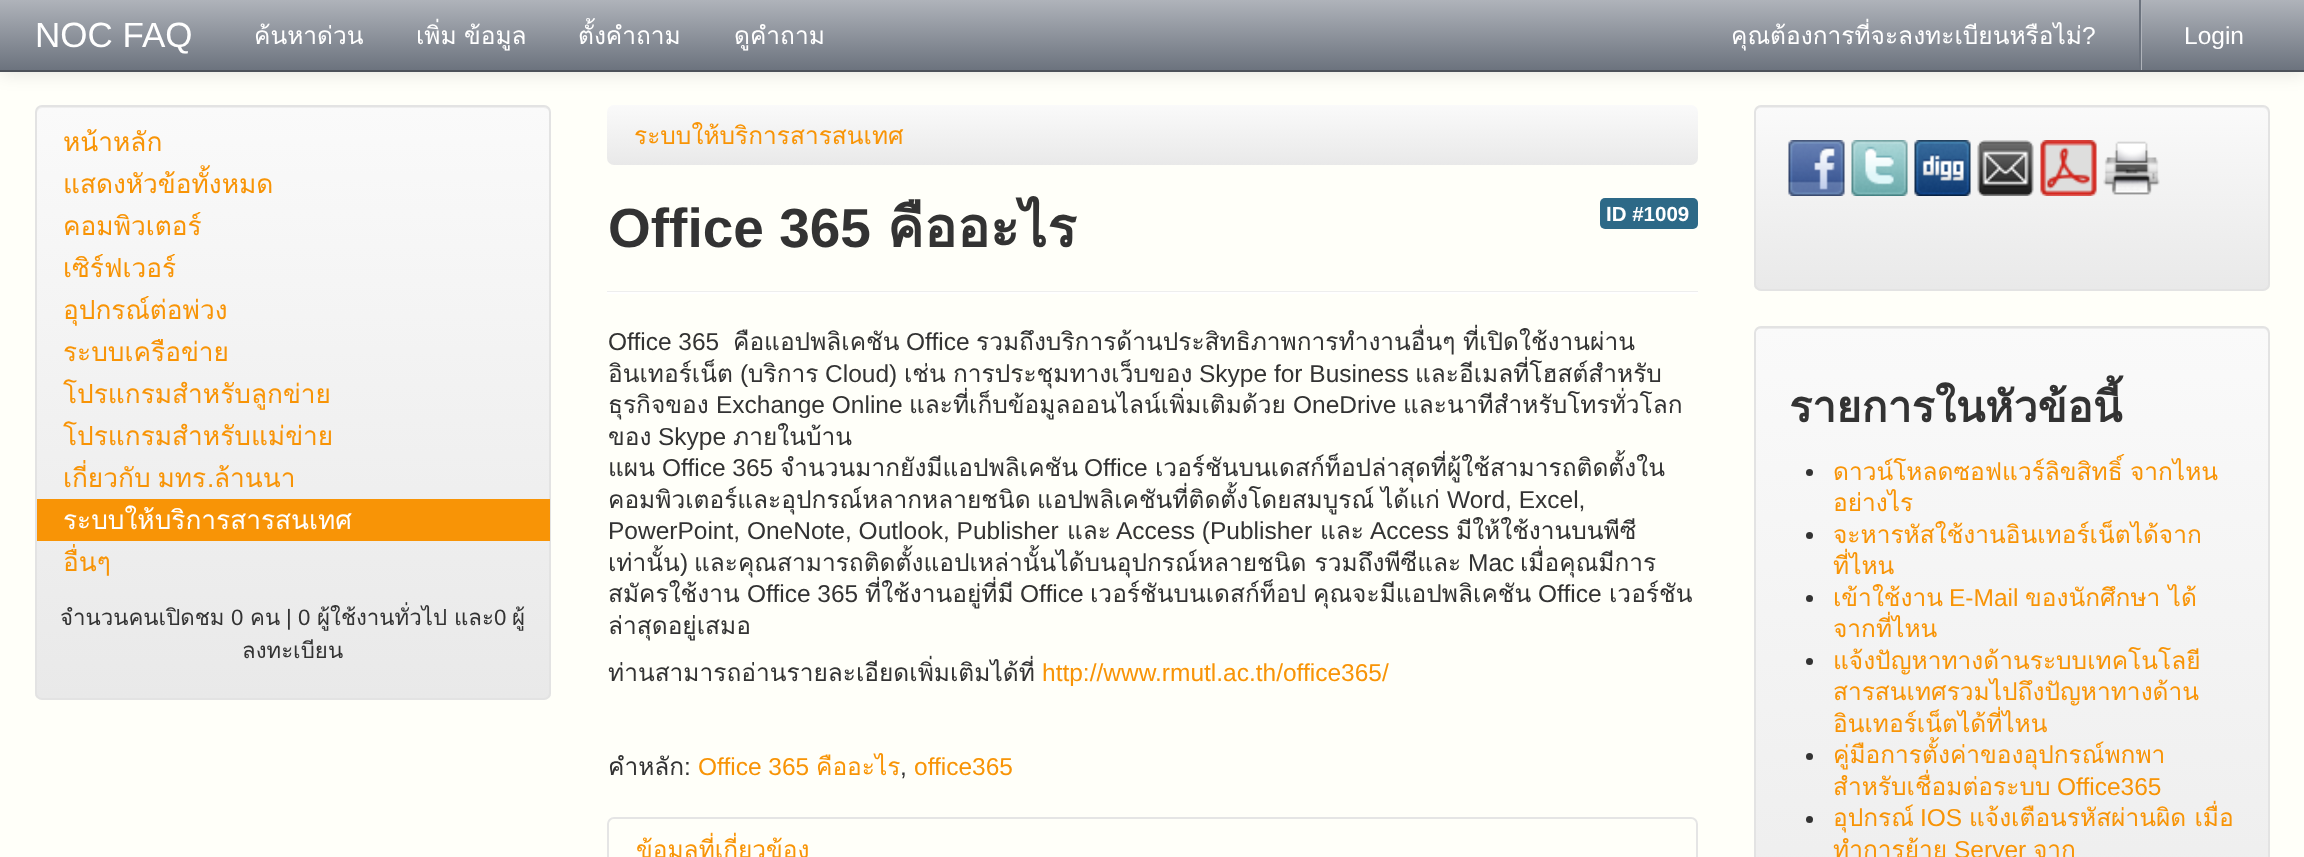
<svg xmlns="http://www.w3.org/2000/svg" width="2304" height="857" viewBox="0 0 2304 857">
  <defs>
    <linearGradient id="g1" gradientUnits="userSpaceOnUse" x1="1152" y1="0" x2="1152" y2="70"><stop offset="0" stop-color="#afb3ba"/><stop offset="1" stop-color="#6c737e"/></linearGradient>
    <clipPath id="clip1"><rect x="35" y="105" width="516" height="595" rx="7"/></clipPath>
    <linearGradient id="g2" gradientUnits="userSpaceOnUse" x1="293" y1="107" x2="293" y2="698"><stop offset="0" stop-color="#fafafa"/><stop offset="1" stop-color="#e9e9e9"/></linearGradient>
    <linearGradient id="g3" gradientUnits="userSpaceOnUse" x1="1152" y1="105" x2="1152" y2="165"><stop offset="0" stop-color="#fafafa"/><stop offset="1" stop-color="#e9e9e9"/></linearGradient>
    <clipPath id="clip2"><rect x="1754" y="105" width="516" height="186" rx="7"/></clipPath>
    <linearGradient id="g4" gradientUnits="userSpaceOnUse" x1="2012" y1="107" x2="2012" y2="289"><stop offset="0" stop-color="#fafafa"/><stop offset="1" stop-color="#e9e9e9"/></linearGradient>
    <clipPath id="clip3"><rect x="1754" y="326" width="516" height="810" rx="7"/></clipPath>
    <linearGradient id="g5" gradientUnits="userSpaceOnUse" x1="2012" y1="327" x2="2012" y2="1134"><stop offset="0" stop-color="#fafafa"/><stop offset="1" stop-color="#e9e9e9"/></linearGradient>
  </defs>
  <rect width="100%" height="100%" fill="#fffff9"/>
  <path d="M0 2h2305v72H0z" fill="#0000001a" filter="blur(9px)"/>
  <path d="M0 0h2304v70H0z" fill="url(#g1)"/>
  <path d="M0 70h2304v2H0z" fill="#4c5159"/>
  <path d="M2141 0h1v70H2141z" fill="#afb3ba"/>
  <path d="M2139 0h2v70H2139z" fill="#6c737e"/>
  <g clip-path="url(#clip1)">
    <path d="M35 107h516v591H35z" fill="url(#g2)"/>
  </g>
  <path d="M42 108H544C547 108 550 111 550 114V112C550 109 548 107 545 107H42C39 107 37 109 37 112V114C37 111 39 108 42 108Z" fill="#eee"/>
  <rect x="36" y="106" width="514" height="593" rx="6" fill="none" stroke="#e3e3e3" stroke-width="2"/>
  <path d="M37 499h513v42H37z" fill="#f89406"/>
  <rect x="607" y="105" width="1091" height="60" rx="7" fill="url(#g3)"/>
  <rect x="1600" y="198" width="98" height="31" rx="5" fill="#2d6987"/>
  <path d="M607 291h1091v1H607z" fill="#eee"/>
  <path d="M607 292h1091v2H607z" fill="#fff"/>
  <rect x="608" y="818" width="1089" height="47" rx="6" fill="none" stroke="#e5e5e5" stroke-width="2"/>
  <g clip-path="url(#clip2)">
    <path d="M1754 107h516v182H1754z" fill="url(#g4)"/>
  </g>
  <path d="M1760 108H2263C2266 108 2268 111 2268 114V112C2268 109 2266 107 2263 107H1760C1757 107 1755 109 1755 112V114C1755 111 1758 108 1760 108Z" fill="#eee"/>
  <rect x="1755" y="106" width="514" height="184" rx="6" fill="none" stroke="#e3e3e3" stroke-width="2"/>
  <image x="1788" y="140" width="57" height="56" href="img/1.png"/>
  <image x="1851" y="140" width="57" height="56" href="img/2.png"/>
  <image x="1914" y="140" width="57" height="56" href="img/3.png"/>
  <image x="1977" y="140" width="57" height="56" href="img/4.png"/>
  <image x="2040" y="140" width="57" height="56" href="img/5.png"/>
  <image x="2103" y="141" width="57" height="54" href="img/6.png"/>
  <g clip-path="url(#clip3)">
    <path d="M1754 327h516v530H1754z" fill="url(#g5)"/>
  </g>
  <path d="M1760 329H2263C2266 329 2268 331 2268 334V332C2268 329 2266 327 2263 327H1760C1757 327 1755 329 1755 332V334C1755 331 1758 329 1760 329Z" fill="#ededed"/>
  <rect x="1755" y="327" width="514" height="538" rx="6" fill="none" stroke="#e3e3e3" stroke-width="2"/>
  <circle cx="1809.5" cy="472.5" r="3.5" fill="#333"/>
  <circle cx="1809.5" cy="535.5" r="3.5" fill="#333"/>
  <circle cx="1809.5" cy="598.5" r="3.5" fill="#333"/>
  <circle cx="1809.5" cy="661.5" r="3.5" fill="#333"/>
  <circle cx="1809.5" cy="756.5" r="3.5" fill="#333"/>
  <circle cx="1809.5" cy="819.5" r="3.5" fill="#333"/>
  <text x="35" y="47" font-family="Liberation Sans" font-size="35" fill="#fff">NOC FAQ</text>
  <g font-family="Loma" font-size="24.5" fill="#fff">
    <text x="254" y="44">ค้นหาด่วน</text>
    <text x="416" y="44" word-spacing="-1">เพิ่ม ข้อมูล</text>
    <text x="578" y="44">ตั้งคำถาม</text>
    <text x="734" y="44">ดูคำถาม</text>
    <text x="1731" y="44">คุณต้องการที่จะลงทะเบียนหรือไม่</text>
  </g>
  <g font-family="Liberation Sans" font-size="24.5" fill="#fff">
    <text x="2082" y="44">?</text>
    <text x="2184" y="44">Login</text>
  </g>
  <g font-family="Loma" font-size="26.25" fill="#f89406">
    <text x="63" y="151">หน้าหลัก</text>
    <text x="63" y="193">แสดงหัวข้อทั้งหมด</text>
    <text x="63" y="235">คอมพิวเตอร์</text>
    <text x="63" y="277">เซิร์ฟเวอร์</text>
    <text x="63" y="319">อุปกรณ์ต่อพ่วง</text>
    <text x="63" y="361">ระบบเครือข่าย</text>
    <text x="63" y="403">โปรแกรมสำหรับลูกข่าย</text>
    <text x="63" y="445">โปรแกรมสำหรับแม่ข่าย</text>
    <text x="63" y="487" word-spacing="-2">เกี่ยวกับ มทร</text>
  </g>
  <text x="207" y="487" font-family="Liberation Sans" font-size="26.25" fill="#f89406">.</text>
  <text x="214" y="487" font-family="Loma" font-size="26.25" fill="#f89406">ล้านนา</text>
  <text x="63" y="529" font-family="Loma" font-size="26.25" fill="#fff">ระบบให้บริการสารสนเทศ</text>
  <text x="63" y="571" font-family="Loma" font-size="26.25" fill="#f89406">อื่นๆ</text>
  <text x="60" y="625" font-family="Loma" font-size="22.25" fill="#333">จำนวนคนเปิดชม</text>
  <text x="231" y="625" font-family="Liberation Sans" font-size="22.25" fill="#333">0</text>
  <text x="250" y="625" font-family="Loma" font-size="22.25" fill="#333">คน</text>
  <text x="286" y="625" font-family="Liberation Sans" font-size="22.25" fill="#333">| 0</text>
  <g font-family="Loma" font-size="22.25" fill="#333">
    <text x="317" y="625">ผู้ใช้งานทั่วไป</text>
    <text x="454" y="625">และ</text>
  </g>
  <text x="494" y="625" font-family="Liberation Sans" font-size="22.25" fill="#333">0</text>
  <g font-family="Loma" font-size="22.25" fill="#333">
    <text x="512" y="625">ผู้</text>
    <text x="242" y="658">ลงทะเบียน</text>
  </g>
  <text x="634" y="144" font-family="Loma" font-size="24.5" fill="#f89406">ระบบให้บริการสารสนเทศ</text>
  <text x="608" y="247" font-family="Liberation Sans" font-size="55" font-weight="bold" fill="#333">Office 365</text>
  <text x="887" y="247" font-family="Loma" font-size="55" font-weight="bold" fill="#333">คืออะไร</text>
  <text x="1606" y="221" font-family="Liberation Sans" font-size="20.5" font-weight="bold" fill="#fff">ID #1009</text>
  <text x="608" y="350" font-family="Liberation Sans" font-size="24.5" fill="#333">Office 365</text>
  <text x="733" y="350" font-family="Loma" font-size="24.5" fill="#333">คือแอปพลิเคชัน</text>
  <text x="906" y="350" font-family="Liberation Sans" font-size="24.5" fill="#333">Office</text>
  <g font-family="Loma" font-size="24.5" fill="#333">
    <text x="976" y="350">รวมถึงบริการด้านประสิทธิภาพการทำงานอื่นๆ</text>
    <text x="1463" y="350">ที่เปิดใช้งานผ่าน</text>
    <text x="608" y="382">อินเทอร์เน็ต</text>
  </g>
  <text x="740" y="382" font-family="Liberation Sans" font-size="24.5" fill="#333">(</text>
  <text x="748" y="382" font-family="Loma" font-size="24.5" fill="#333">บริการ</text>
  <text x="825" y="382" font-family="Liberation Sans" font-size="24.5" fill="#333">Cloud)</text>
  <g font-family="Loma" font-size="24.5" fill="#333">
    <text x="904" y="382">เช่น</text>
    <text x="953" y="382">การประชุมทางเว็บของ</text>
  </g>
  <text x="1199" y="382" font-family="Liberation Sans" font-size="24.5" fill="#333">Skype for Business</text>
  <g font-family="Loma" font-size="24.5" fill="#333">
    <text x="1415" y="382">และอีเมลที่โฮสต์สำหรับ</text>
    <text x="608" y="413">ธุรกิจของ</text>
  </g>
  <text x="716" y="413" font-family="Liberation Sans" font-size="24.5" fill="#333">Exchange Online</text>
  <text x="909" y="413" font-family="Loma" font-size="24.5" fill="#333">และที่เก็บข้อมูลออนไลน์เพิ่มเติมด้วย</text>
  <text x="1293" y="413" font-family="Liberation Sans" font-size="24.5" fill="#333">OneDrive</text>
  <g font-family="Loma" font-size="24.5" fill="#333">
    <text x="1403" y="413">และนาทีสำหรับโทรทั่วโลก</text>
    <text x="608" y="445">ของ</text>
  </g>
  <text x="658" y="445" font-family="Liberation Sans" font-size="24.5" fill="#333">Skype</text>
  <g font-family="Loma" font-size="24.5" fill="#333">
    <text x="733" y="445">ภายในบ้าน</text>
    <text x="608" y="476">แผน</text>
  </g>
  <text x="662" y="476" font-family="Liberation Sans" font-size="24.5" fill="#333">Office 365</text>
  <text x="780" y="476" font-family="Loma" font-size="24.5" fill="#333">จำนวนมากยังมีแอปพลิเคชัน</text>
  <text x="1084" y="476" font-family="Liberation Sans" font-size="24.5" fill="#333">Office</text>
  <g font-family="Loma" font-size="24.5" fill="#333">
    <text x="1155" y="476">เวอร์ชันบนเดสก์ท็อปล่าสุดที่ผู้ใช้สามารถติดตั้งใน</text>
    <text x="608" y="508">คอมพิวเตอร์และอุปกรณ์หลากหลายชนิด</text>
    <text x="1037" y="508">แอปพลิเคชันที่ติดตั้งโดยสมบูรณ์</text>
    <text x="1381" y="508">ได้แก่</text>
  </g>
  <g font-family="Liberation Sans" font-size="24.5" fill="#333">
    <text x="1447" y="508">Word, Excel,</text>
    <text x="608" y="539">PowerPoint, OneNote, Outlook, Publisher</text>
  </g>
  <text x="1067" y="539" font-family="Loma" font-size="24.5" fill="#333">และ</text>
  <text x="1116" y="539" font-family="Liberation Sans" font-size="24.5" fill="#333">Access (Publisher</text>
  <text x="1320" y="539" font-family="Loma" font-size="24.5" fill="#333">และ</text>
  <text x="1370" y="539" font-family="Liberation Sans" font-size="24.5" fill="#333">Access</text>
  <g font-family="Loma" font-size="24.5" fill="#333">
    <text x="1456" y="539">มีให้ใช้งานบนพีซี</text>
    <text x="608" y="571">เท่านั้น</text>
  </g>
  <text x="680" y="571" font-family="Liberation Sans" font-size="24.5" fill="#333">)</text>
  <text x="694" y="571" font-family="Loma" font-size="24.5" fill="#333">และคุณสามารถติดตั้งแอปเหล่านั้นได้บนอุปกรณ์หลายชนิด รวมถึงพีซีและ</text>
  <text x="1468" y="571" font-family="Liberation Sans" font-size="24.5" fill="#333">Mac</text>
  <g font-family="Loma" font-size="24.5" fill="#333">
    <text x="1520" y="571">เมื่อคุณมีการ</text>
    <text x="608" y="602">สมัครใช้งาน</text>
  </g>
  <text x="747" y="602" font-family="Liberation Sans" font-size="24.5" fill="#333">Office 365</text>
  <text x="865" y="602" font-family="Loma" font-size="24.5" fill="#333">ที่ใช้งานอยู่ที่มี</text>
  <text x="1020" y="602" font-family="Liberation Sans" font-size="24.5" fill="#333">Office</text>
  <g font-family="Loma" font-size="24.5" fill="#333">
    <text x="1090" y="602">เวอร์ชันบนเดสก์ท็อป</text>
    <text x="1313" y="602">คุณจะมีแอปพลิเคชัน</text>
  </g>
  <text x="1538" y="602" font-family="Liberation Sans" font-size="24.5" fill="#333">Office</text>
  <g font-family="Loma" font-size="24.5" fill="#333">
    <text x="1609" y="602">เวอร์ชัน</text>
    <text x="608" y="634">ล่าสุดอยู่เสมอ</text>
    <text x="608" y="681">ท่านสามารถอ่านรายละเอียดเพิ่มเติมได้ที่</text>
  </g>
  <text x="1042" y="681" font-family="Liberation Sans" font-size="24.5" fill="#f89406">http://www.rmutl.ac.th/office365/</text>
  <text x="608" y="775" font-family="Loma" font-size="24.5" fill="#333">คำหลัก</text>
  <text x="684" y="775" font-family="Liberation Sans" font-size="24.5" fill="#333">:</text>
  <text x="698" y="775" font-family="Liberation Sans" font-size="24.5" fill="#f89406">Office 365</text>
  <text x="816" y="775" font-family="Loma" font-size="24.5" fill="#f89406">คืออะไร</text>
  <text x="900" y="775" font-family="Liberation Sans" font-size="24.5" fill="#333">,</text>
  <text x="914" y="775" font-family="Liberation Sans" font-size="24.5" fill="#f89406">office365</text>
  <text x="636" y="858" font-family="Loma" font-size="24.5" fill="#f89406">ข้อมูลที่เกี่ยวข้อง</text>
  <text x="1789" y="422" font-family="Loma" font-size="43" font-weight="bold" fill="#333">รายการในหัวข้อนี้</text>
  <g font-family="Loma" font-size="24.5" fill="#f89406">
    <text x="1833" y="480" word-spacing="-1">ดาวน์โหลดซอฟแวร์ลิขสิทธิ์ จากไหน</text>
    <text x="1833" y="511">อย่างไร</text>
    <text x="1833" y="543">จะหารหัสใช้งานอินเทอร์เน็ตได้จาก</text>
    <text x="1833" y="574">ที่ไหน</text>
    <text x="1833" y="606">เข้าใช้งาน</text>
  </g>
  <text x="1949" y="606" font-family="Liberation Sans" font-size="24.5" fill="#f89406">E-Mail</text>
  <g font-family="Loma" font-size="24.5" fill="#f89406">
    <text x="2025" y="606">ของนักศึกษา ได้</text>
    <text x="1833" y="637">จากที่ไหน</text>
    <text x="1833" y="669">แจ้งปัญหาทางด้านระบบเทคโนโลยี</text>
    <text x="1833" y="700">สารสนเทศรวมไปถึงปัญหาทางด้าน</text>
    <text x="1833" y="732">อินเทอร์เน็ตได้ที่ไหน</text>
    <text x="1833" y="763">คู่มือการตั้งค่าของอุปกรณ์พกพา</text>
    <text x="1833" y="795">สำหรับเชื่อมต่อระบบ</text>
  </g>
  <text x="2057" y="795" font-family="Liberation Sans" font-size="24.5" fill="#f89406">Office365</text>
  <text x="1833" y="826" font-family="Loma" font-size="24.5" fill="#f89406">อุปกรณ์</text>
  <text x="1920" y="826" font-family="Liberation Sans" font-size="24.5" fill="#f89406">IOS</text>
  <g font-family="Loma" font-size="24.5" fill="#f89406">
    <text x="1969" y="826">แจ้งเตือนรหัสผ่านผิด เมื่อ</text>
    <text x="1833" y="858">ทำการย้าย</text>
  </g>
  <text x="1954" y="858" font-family="Liberation Sans" font-size="24.5" fill="#f89406">Server</text>
  <text x="2033" y="858" font-family="Loma" font-size="24.5" fill="#f89406">จาก</text>
</svg>
